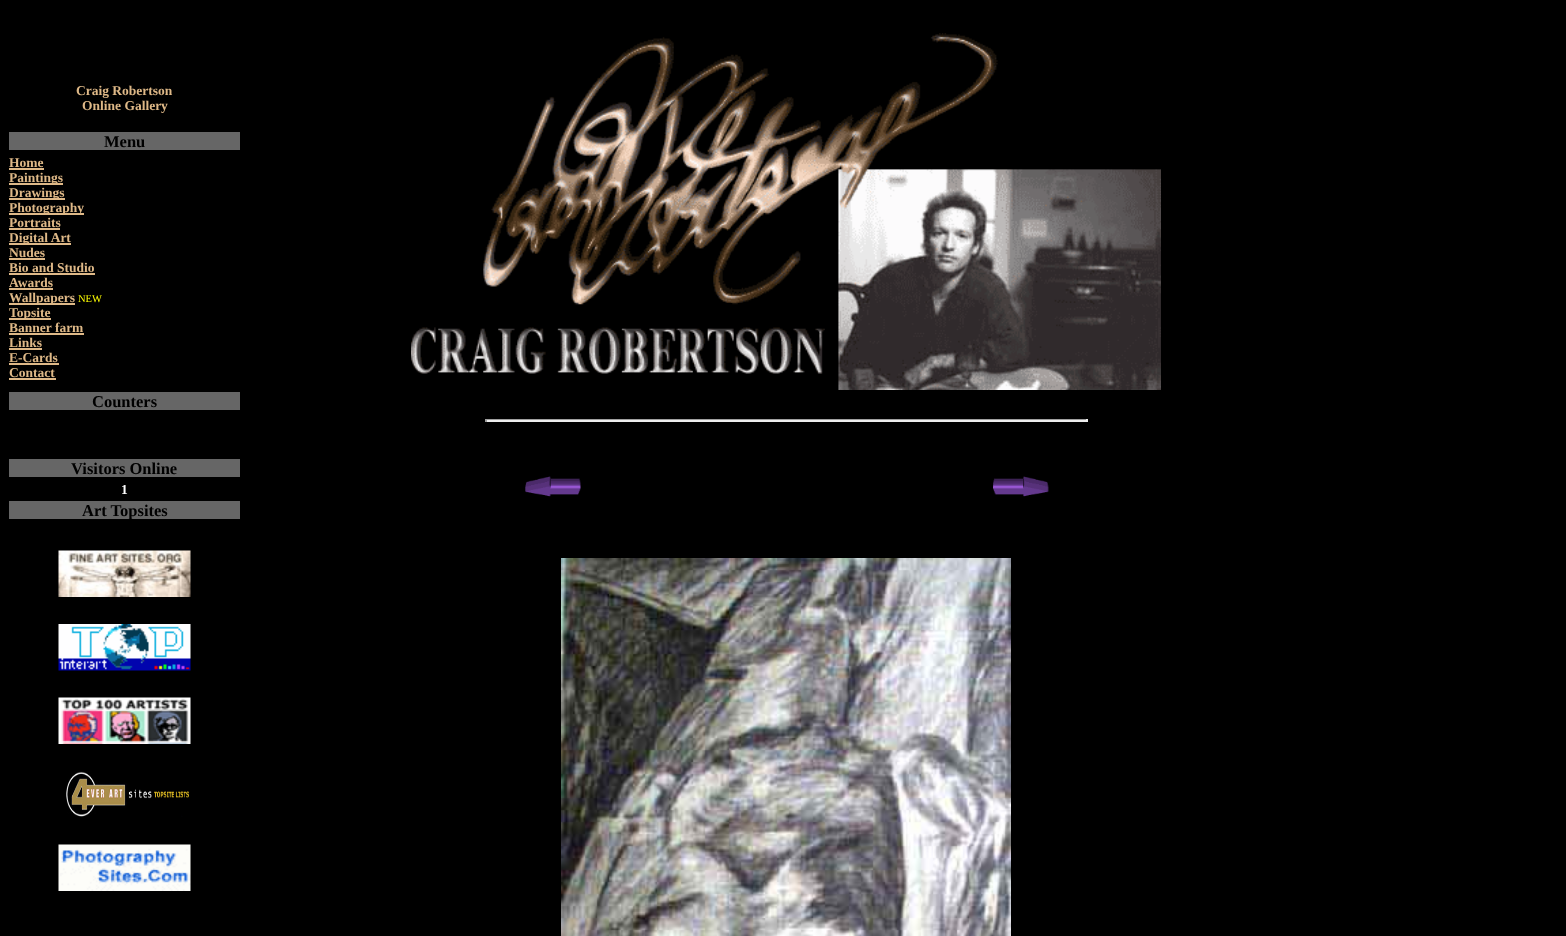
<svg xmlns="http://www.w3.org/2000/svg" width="1566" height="936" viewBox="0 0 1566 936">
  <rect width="100%" height="100%" fill="#000"/>
  <path d="M9 132h231v18H9z" fill="#666"/>
  <path d="M9 168h35v2H9z" fill="#deb887"/>
  <path d="M9 183h54v2H9z" fill="#deb887"/>
  <path d="M9 198h56v2H9z" fill="#deb887"/>
  <path d="M9 213h75v2H9z" fill="#deb887"/>
  <path d="M9 228h51v2H9z" fill="#deb887"/>
  <path d="M9 243h62v2H9z" fill="#deb887"/>
  <path d="M9 258h36v2H9z" fill="#deb887"/>
  <path d="M9 273h86v2H9z" fill="#deb887"/>
  <path d="M9 288h44v2H9z" fill="#deb887"/>
  <path d="M9 303h66v2H9z" fill="#deb887"/>
  <path d="M9 318h42v2H9z" fill="#deb887"/>
  <path d="M9 333h75v2H9z" fill="#deb887"/>
  <path d="M9 348h33v2H9z" fill="#deb887"/>
  <path d="M9 363h50v2H9z" fill="#deb887"/>
  <path d="M9 378h47v2H9z" fill="#deb887"/>
  <path d="M9 392h231v18H9z" fill="#666"/>
  <path d="M9 459h231v18H9z" fill="#666"/>
  <path d="M9 501h231v18H9z" fill="#666"/>
  <image x="58" y="550" width="133" height="47" href="img/1.png"/>
  <image x="58" y="624" width="133" height="47" href="img/2.png"/>
  <image x="58" y="697" width="133" height="47" href="img/3.png"/>
  <image x="66" y="771" width="123" height="46" href="img/4.png"/>
  <image x="58" y="844" width="133" height="47" href="img/5.png"/>
  <image x="411" y="33" width="750" height="357" href="img/6.png"/>
  <path d="M485 419h603v1H485z" fill="#9f9f9f"/>
  <path d="M1086 419h2v3H1086z" fill="#eee"/>
  <path d="M485 420h603v2H485z" fill="#eee"/>
  <path d="M485 419h2v3H485z" fill="#9f9f9f"/>
  <image x="525" y="476" width="56" height="21" href="img/7.png"/>
  <image x="993" y="476" width="56" height="21" href="img/8.png"/>
  <image x="561" y="558" width="450" height="378" href="img/9.png"/>
  <g font-family="Liberation Serif" font-size="13.5" font-weight="bold" fill="#deb887">
    <text x="76" y="95">Craig Robertson</text>
    <text x="82" y="110">Online Gallery</text>
  </g>
  <text x="104" y="147" font-family="Liberation Serif" font-size="16.5" font-weight="bold" fill="#000">Menu</text>
  <g font-family="Liberation Serif" font-size="13.5" font-weight="bold" fill="#deb887">
    <text x="9" y="167">Home</text>
    <text x="9" y="182">Paintings</text>
    <text x="9" y="197">Drawings</text>
    <text x="9" y="212">Photography</text>
    <text x="9" y="227">Portraits</text>
    <text x="9" y="242">Digital Art</text>
    <text x="9" y="257">Nudes</text>
    <text x="9" y="272">Bio and Studio</text>
    <text x="9" y="287">Awards</text>
    <text x="9" y="302">Wallpapers</text>
  </g>
  <text x="78" y="302" font-family="Liberation Serif" font-size="10.5" fill="#ff0">NEW</text>
  <g font-family="Liberation Serif" font-size="13.5" font-weight="bold" fill="#deb887">
    <text x="9" y="317">Topsite</text>
    <text x="9" y="332">Banner farm</text>
    <text x="9" y="347">Links</text>
    <text x="9" y="362">E-Cards</text>
    <text x="9" y="377">Contact</text>
  </g>
  <g font-family="Liberation Serif" font-size="16.5" font-weight="bold" fill="#000">
    <text x="92" y="407">Counters</text>
    <text x="71" y="474">Visitors Online</text>
  </g>
  <text x="121" y="494" font-family="Liberation Serif" font-size="13.5" font-weight="bold" fill="#fff">1</text>
  <text x="82" y="516" font-family="Liberation Serif" font-size="16.5" font-weight="bold" fill="#000">Art Topsites</text>
</svg>
